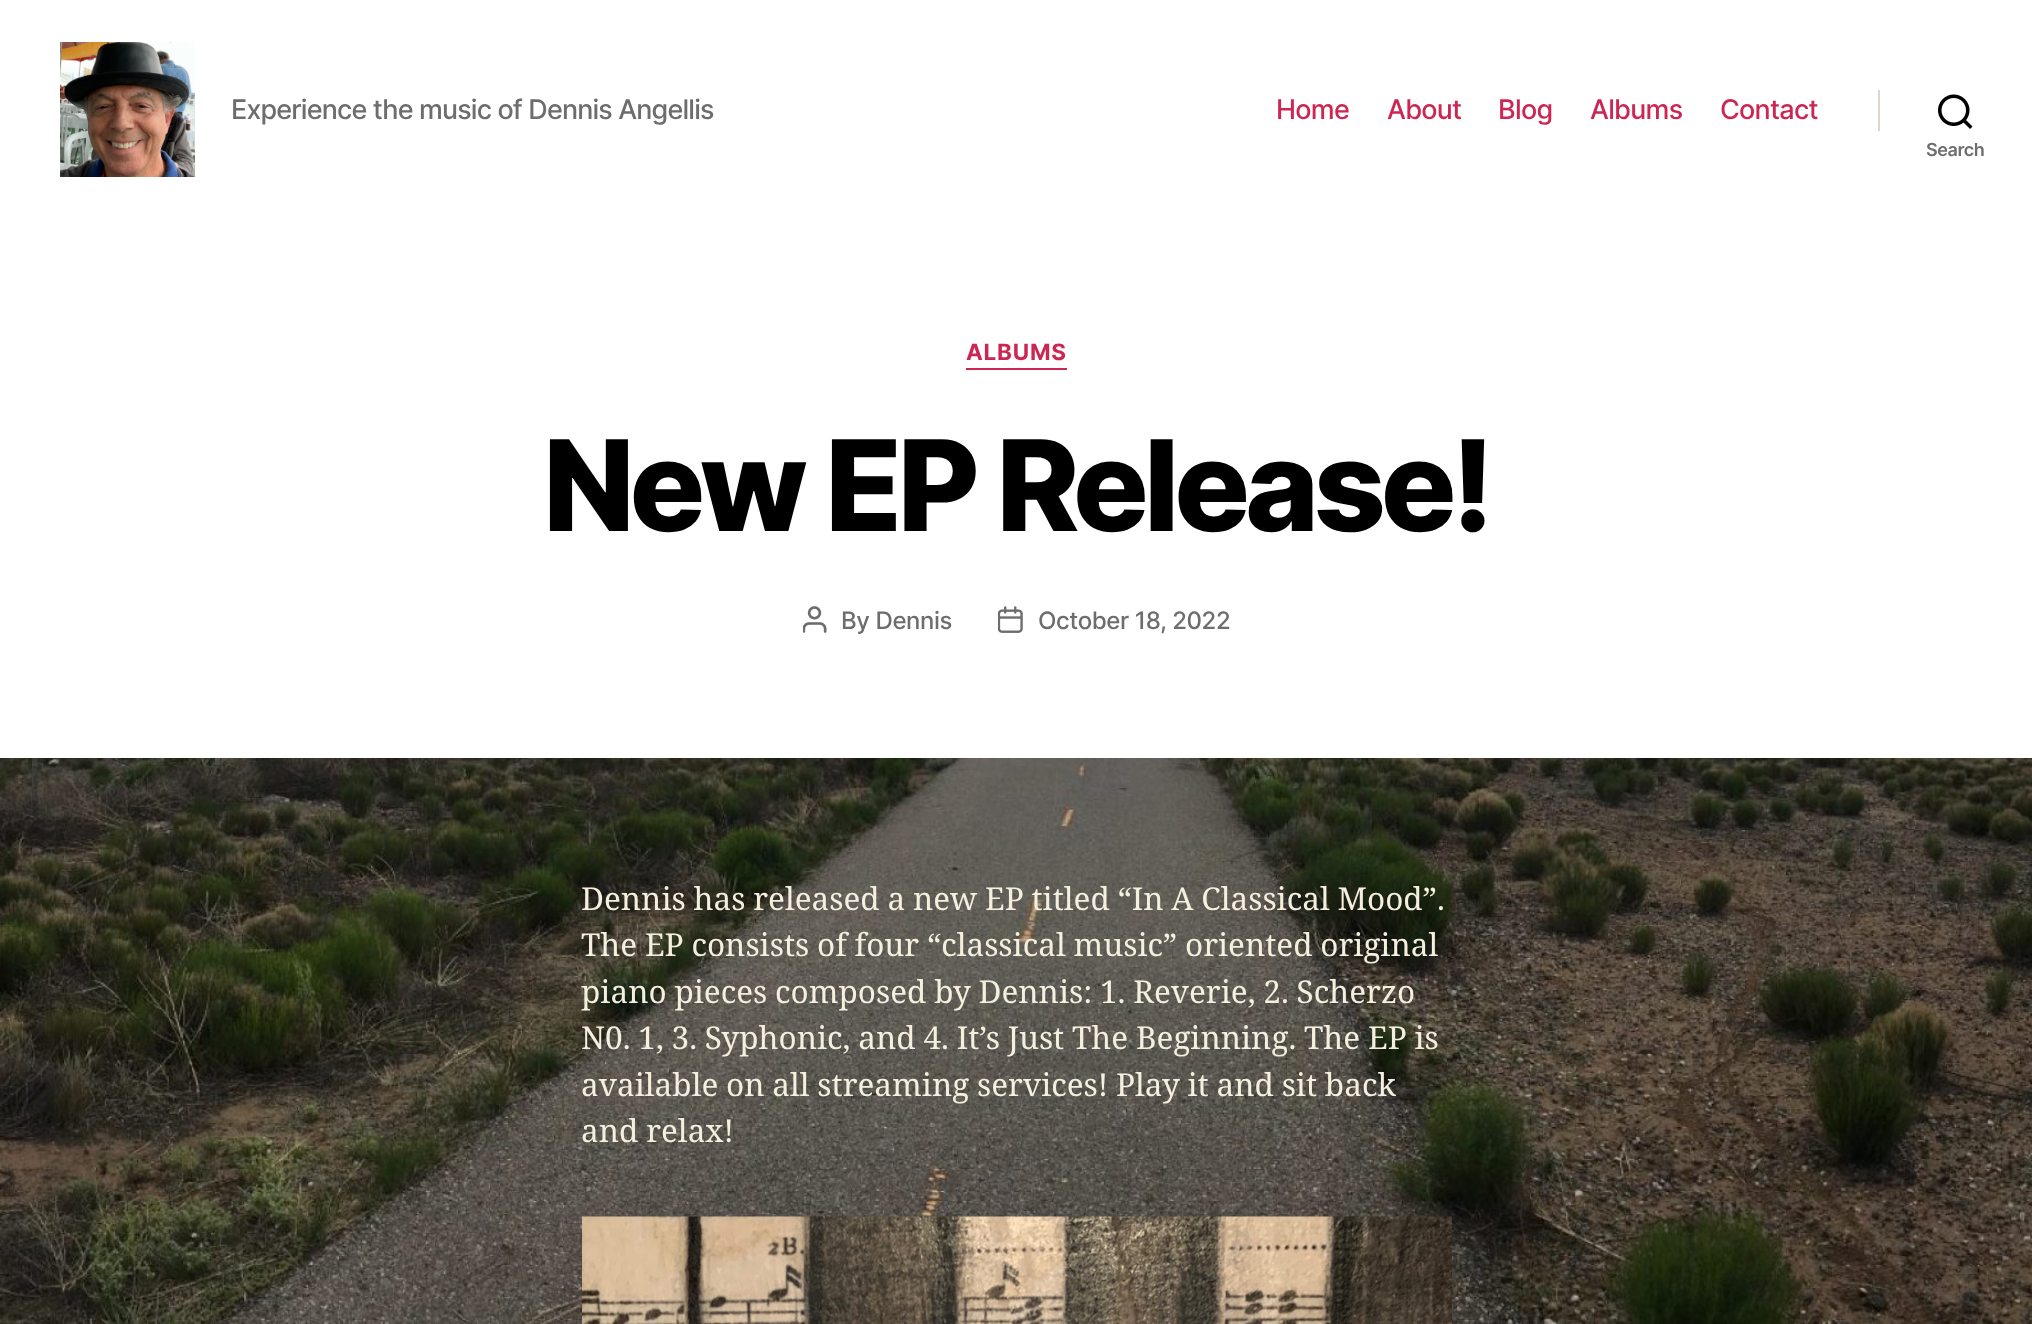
<svg xmlns="http://www.w3.org/2000/svg" width="2032" height="1324" viewBox="0 0 2032 1324">
  <rect width="100%" height="100%" fill="#fff"/>
  <image x="0" y="758" width="2032" height="566" href="img/1.png"/>
  <image x="60" y="42" width="135" height="135" href="img/2.png"/>
  <path d="M1878 90h2v41H1878z" fill="#dcd7ca"/>
  <image x="1938" y="94" width="35" height="35" href="img/3.png"/>
  <path d="M966 368h101v2H966z" fill="#cd2653"/>
  <image x="803" y="606" width="24" height="27" href="img/4.png"/>
  <image x="998" y="606" width="25" height="27" href="img/5.png"/>
  <image x="582" y="1216" width="870" height="108" href="img/6.png"/>
  <text x="231" y="119" font-family="Inter" font-size="27" font-weight="500" letter-spacing="-0.85" fill="#6d6d6d">Experience the music of Dennis Angellis</text>
  <g font-family="Inter" font-size="27" font-weight="500" letter-spacing="-0.75" fill="#cd2653">
    <text x="1276" y="119">Home</text>
    <text x="1387" y="119">About</text>
    <text x="1498" y="119">Blog</text>
    <text x="1590" y="119">Albums</text>
    <text x="1720" y="119">Contact</text>
  </g>
  <text x="1926" y="156" font-family="Inter" font-size="18" font-weight="600" letter-spacing="-0.4" fill="#6d6d6d">Search</text>
  <text x="966" y="360" font-family="Inter" font-size="22.5" font-weight="bold" letter-spacing="0.75" fill="#cd2653">ALBUMS</text>
  <text x="543" y="531" font-family="Inter" font-size="126" font-weight="800" letter-spacing="-5.25" fill="#000">New EP Release!</text>
  <g font-family="Inter" font-size="24" font-weight="500" letter-spacing="-0.4" fill="#6d6d6d">
    <text x="841" y="629">By Dennis</text>
    <text x="1038" y="629">October 18, 2022</text>
  </g>
  <g font-family="Noto Serif" font-size="31.5" fill="#f5efe0">
    <text x="581" y="910" word-spacing="-0.4">Dennis has released a new EP titled “In A Classical Mood”.</text>
    <text x="581" y="956" word-spacing="-0.4">The EP consists of four “classical music” oriented original</text>
    <text x="581" y="1003" word-spacing="-0.4">piano pieces composed by Dennis: 1. Reverie, 2. Scherzo</text>
    <text x="581" y="1049" word-spacing="-0.4">N0. 1, 3. Syphonic, and 4. It’s Just The Beginning. The EP is</text>
    <text x="581" y="1096" word-spacing="-0.4">available on all streaming services! Play it and sit back</text>
    <text x="581" y="1142" word-spacing="-0.4">and relax!</text>
  </g>
</svg>
